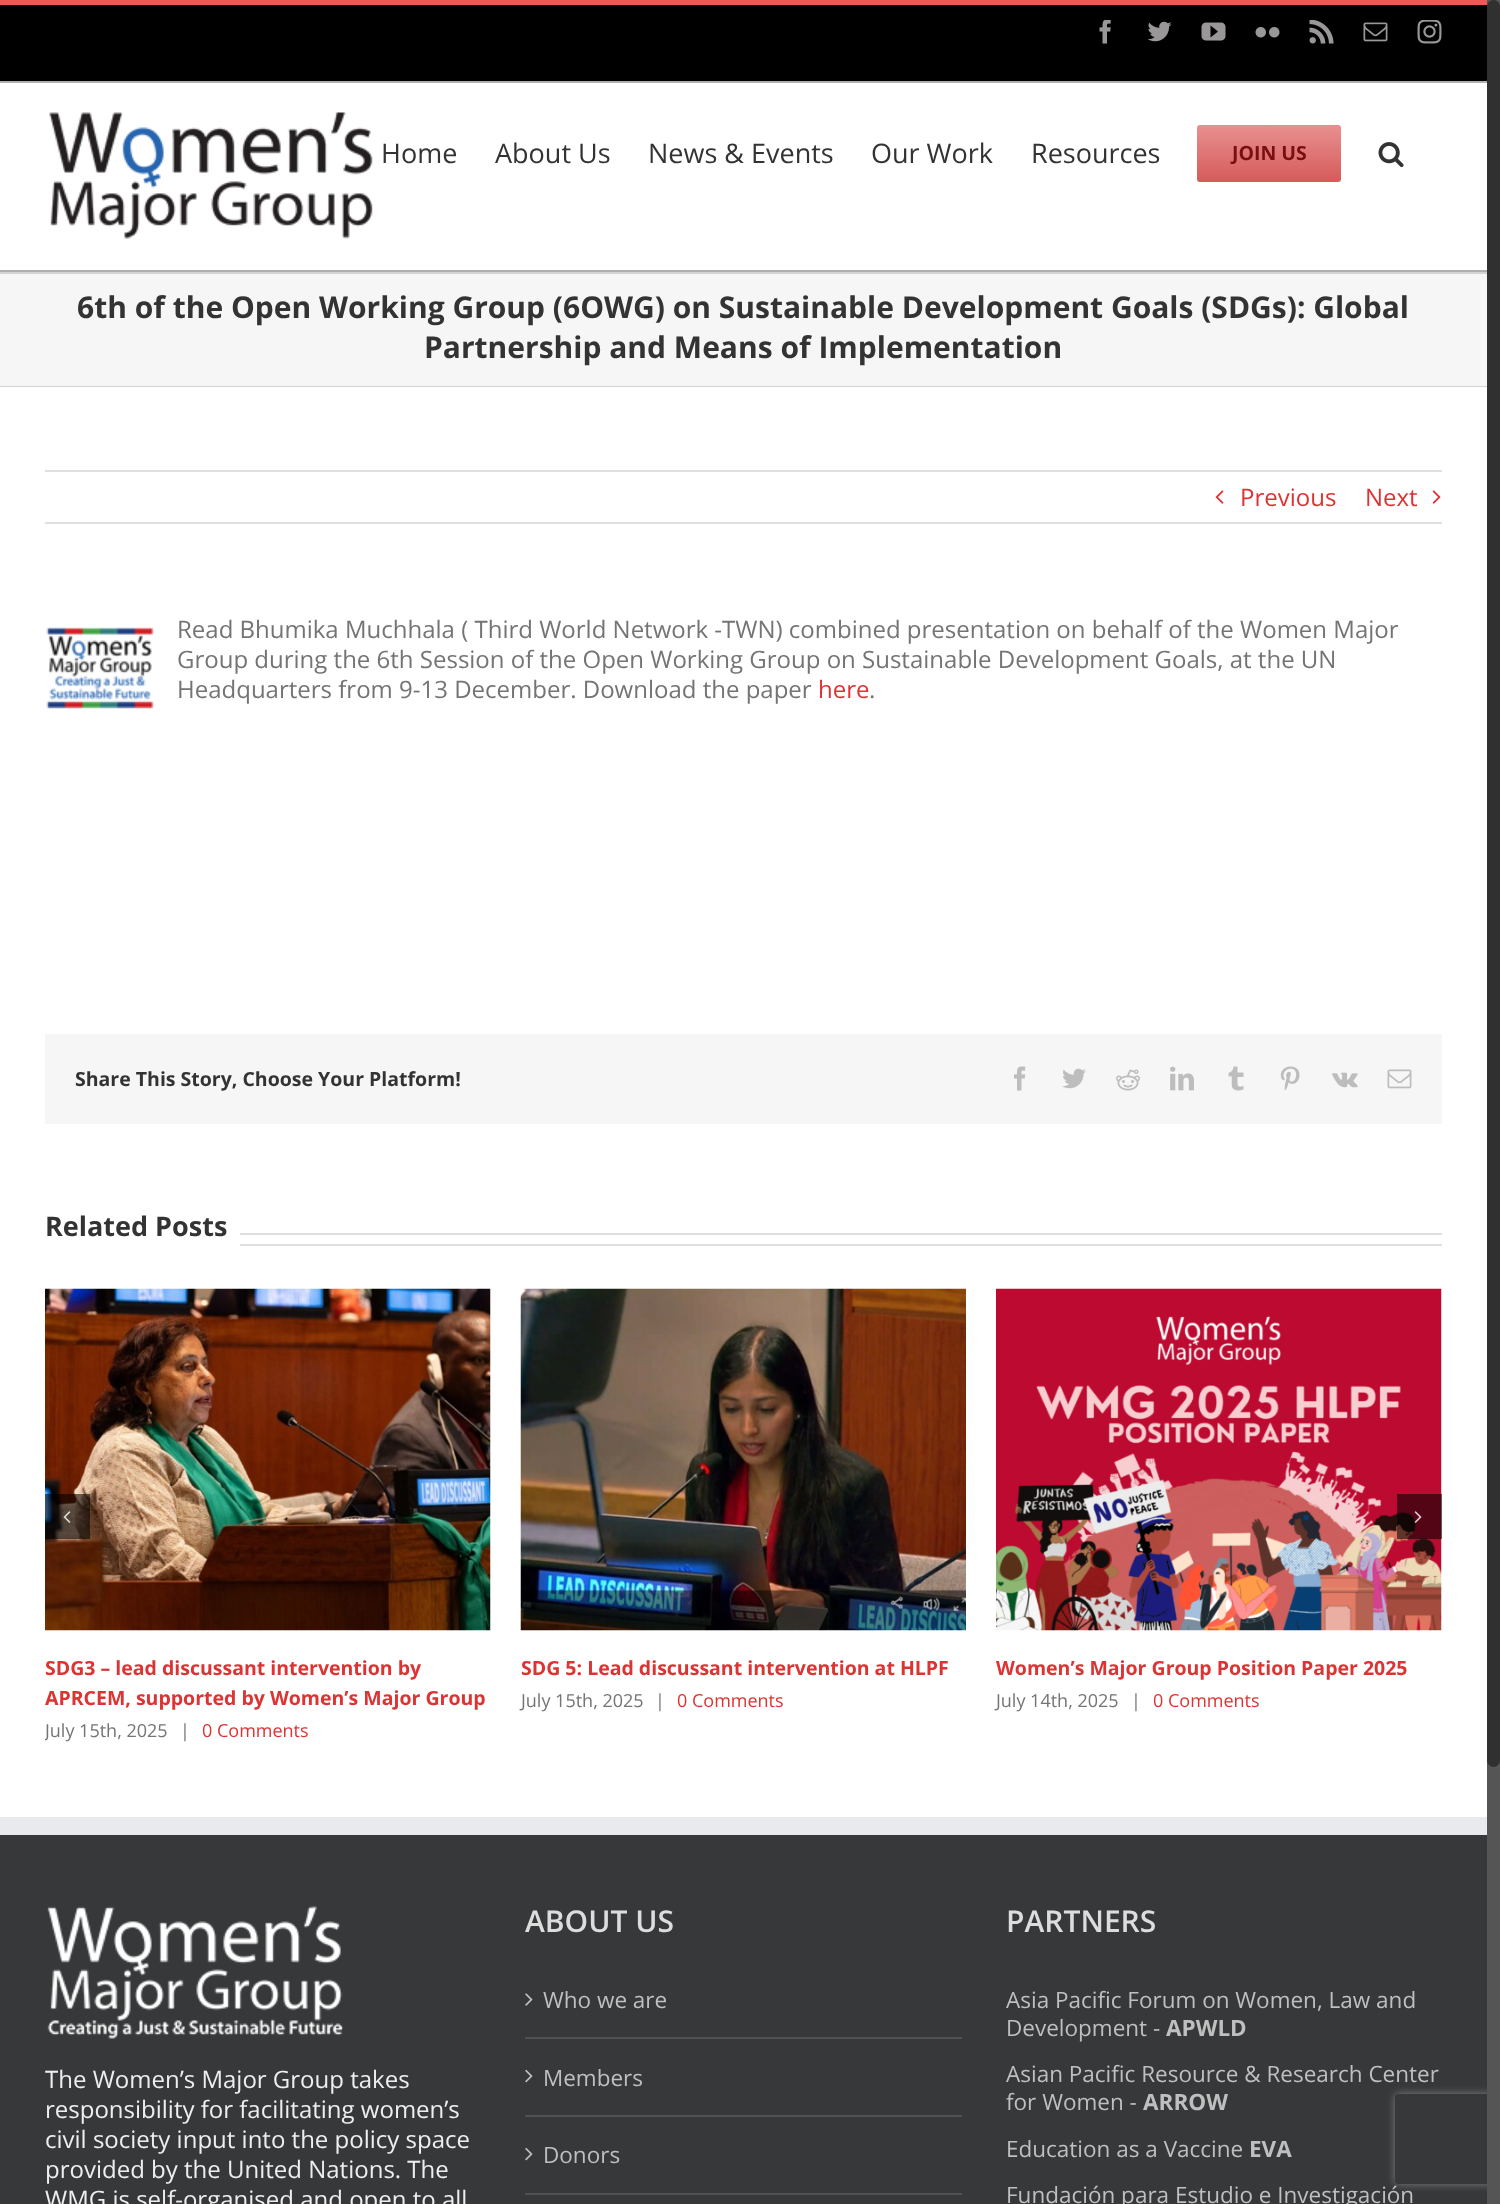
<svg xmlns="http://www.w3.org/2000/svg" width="1500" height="2204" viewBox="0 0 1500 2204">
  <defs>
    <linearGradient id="g1" gradientUnits="userSpaceOnUse" x1="1269" y1="182" x2="1269" y2="125"><stop offset="0" stop-color="#d65a5a"/><stop offset="1" stop-color="#e89090"/></linearGradient>
    <clipPath id="clip1"><path d="M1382 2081H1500V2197H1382ZM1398 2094H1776C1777.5 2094 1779 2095.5 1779 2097V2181C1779 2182.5 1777.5 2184 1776 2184H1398C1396.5 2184 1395 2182.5 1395 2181V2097C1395 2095.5 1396.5 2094 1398 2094Z" clip-rule="evenodd"/></clipPath>
    <clipPath id="clip2"><path d="M45 1277h1397v480H45z"/></clipPath>
  </defs>
  <rect width="100%" height="100%" fill="#fff"/>
  <path d="M0 5h1487v76H0z" fill="#000"/>
  <path d="M0 0h1487v5H0z" fill="#f05858"/>
  <path d="M0 81h1487v2H0z" fill="#afafaf"/>
  <image x="1099" y="20" width="12" height="24" href="img/1.png"/>
  <image x="1147" y="21" width="25" height="21" href="img/2.png"/>
  <image x="1201" y="22" width="25" height="19" href="img/3.png"/>
  <image x="1255" y="27" width="25" height="11" href="img/4.png"/>
  <image x="1309" y="20" width="25" height="24" href="img/5.png"/>
  <image x="1363" y="22" width="25" height="20" href="img/6.png"/>
  <image x="1417" y="20" width="25" height="24" href="img/7.png"/>
  <path d="M0 270h1487v2H0z" fill="#afafaf"/>
  <image x="49" y="112" width="324" height="127" href="img/8.png"/>
  <rect x="1197" y="125" width="144" height="57" rx="3" fill="url(#g1)"/>
  <image x="1378" y="142" width="26" height="26" href="img/9.png"/>
  <path d="M0 274h1487v112H0z" fill="#f6f6f6"/>
  <path d="M0 272h1487v2H0z" fill="#d2d3d4"/>
  <path d="M0 386h1487v1H0z" fill="#d2d3d4"/>
  <path d="M45 470h1397v2H45z" fill="#e0dede"/>
  <path d="M45 522h1397v2H45z" fill="#e0dede"/>
  <image x="1215" y="490" width="9" height="14" href="img/10.png"/>
  <image x="1432" y="490" width="9" height="14" href="img/11.png"/>
  <image x="46" y="627" width="108" height="82" href="img/12.png"/>
  <path d="M45 1034h1397v90H45z" fill="#f6f6f6"/>
  <image x="1014" y="1066" width="12" height="25" href="img/13.png"/>
  <image x="1062" y="1068" width="24" height="21" href="img/14.png"/>
  <image x="1116" y="1069" width="24" height="22" href="img/15.png"/>
  <image x="1170" y="1066" width="24" height="25" href="img/16.png"/>
  <image x="1228" y="1066" width="16" height="25" href="img/17.png"/>
  <image x="1280" y="1066" width="20" height="25" href="img/18.png"/>
  <image x="1332" y="1072" width="26" height="16" href="img/19.png"/>
  <image x="1387" y="1069" width="25" height="20" href="img/20.png"/>
  <path d="M240 1233h1202v2H240z" fill="#e0dede"/>
  <path d="M240 1244h1202v2H240z" fill="#e0dede"/>
  <image x="45" y="1288" width="446" height="343" href="img/23.png"/>
  <path d="M45 1494h45v45H45z" fill="#0000008f"/>
  <image x="63" y="1511" width="8" height="12" href="img/21.png"/>
  <image x="996" y="1288" width="446" height="343" href="img/25.png"/>
  <path d="M1397 1494h45v45H1397z" fill="#0000008f"/>
  <image x="1414" y="1511" width="8" height="12" href="img/22.png"/>
  <image x="520" y="1288" width="446" height="343" href="img/24.png"/>
  <path d="M0 1835h1487v369H0z" fill="#363839"/>
  <path d="M0 1817h1487v18H0z" fill="#e9eaee"/>
  <image x="47" y="1906" width="296" height="133" href="img/26.png"/>
  <path d="M525 2037h437v2H525z" fill="#505152"/>
  <image x="525" y="1993" width="8" height="13" href="img/27.png"/>
  <path d="M525 2115h437v2H525z" fill="#505152"/>
  <image x="525" y="2069" width="8" height="14" href="img/28.png"/>
  <path d="M525 2193h437v2H525z" fill="#505152"/>
  <image x="525" y="2147" width="8" height="14" href="img/28.png"/>
  <g clip-path="url(#clip1)">
    <rect x="1395" y="2094" width="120" height="90" rx="3" fill="#808080" filter="blur(4px)"/>
  </g>
  <path d="M1487 0h13v2204H1487z" fill="#555"/>
  <rect x="1487" width="13" height="1767" rx="6.5" fill="#303030"/>
  <g font-family="Open Sans" font-size="27" fill="#333">
    <text x="381" y="163">Home</text>
    <text x="495" y="163">About Us</text>
    <text x="648" y="163">News &amp; Events</text>
    <text x="871" y="163">Our Work</text>
    <text x="1031" y="163">Resources</text>
  </g>
  <text x="1232" y="160" font-family="Open Sans" font-size="19.5" font-weight="bold" fill="#781010">JOIN US</text>
  <g font-family="Open Sans" font-size="30" font-weight="bold" fill="#333">
    <text x="77" y="318">6th of the Open Working Group (6OWG) on Sustainable Development Goals (SDGs): Global</text>
    <text x="424" y="358">Partnership and Means of Implementation</text>
  </g>
  <g font-family="Open Sans" font-size="24" fill="#d33">
    <text x="1240" y="506">Previous</text>
    <text x="1365" y="506">Next</text>
  </g>
  <g font-family="Open Sans" font-size="24" fill="#747474">
    <text x="177" y="638">Read Bhumika Muchhala ( Third World Network -TWN) combined presentation on behalf of the Women Major</text>
    <text x="177" y="668">Group during the 6th Session of the Open Working Group on Sustainable Development Goals, at the UN</text>
    <text x="177" y="698">Headquarters from 9-13 December. Download the paper</text>
  </g>
  <text x="818" y="698" font-family="Open Sans" font-size="24" fill="#d33">here</text>
  <text x="869" y="698" font-family="Open Sans" font-size="24" fill="#747474">.</text>
  <text x="75" y="1086" font-family="Open Sans" font-size="19.5" font-weight="bold" fill="#333">Share This Story, Choose Your Platform!</text>
  <text x="45" y="1236" font-family="Open Sans" font-size="27" font-weight="bold" fill="#333">Related Posts</text>
  <g font-family="Open Sans" font-size="19.5" font-weight="bold" fill="#d33">
    <text x="45" y="1675">SDG3 – lead discussant intervention by</text>
    <text x="45" y="1705">APRCEM, supported by Women’s Major Group</text>
  </g>
  <g clip-path="url(#clip2)">
    <text x="45" y="1737" font-family="Open Sans" font-size="18" fill="#747474">July 15th, 2025</text>
  </g>
  <text x="180" y="1737" font-family="Open Sans" font-size="18" fill="#747474">|</text>
  <text x="202" y="1737" font-family="Open Sans" font-size="18" fill="#d33">0 Comments</text>
  <text x="521" y="1675" font-family="Open Sans" font-size="19.5" font-weight="bold" fill="#d33">SDG 5: Lead discussant intervention at HLPF</text>
  <g font-family="Open Sans" font-size="18" fill="#747474">
    <text x="521" y="1707">July 15th, 2025</text>
    <text x="655" y="1707">|</text>
  </g>
  <text x="677" y="1707" font-family="Open Sans" font-size="18" fill="#d33">0 Comments</text>
  <text x="996" y="1675" font-family="Open Sans" font-size="19.5" font-weight="bold" fill="#d33">Women’s Major Group Position Paper 2025</text>
  <g font-family="Open Sans" font-size="18" fill="#747474">
    <text x="996" y="1707">July 14th, 2025</text>
    <text x="1131" y="1707">|</text>
  </g>
  <text x="1153" y="1707" font-family="Open Sans" font-size="18" fill="#d33">0 Comments</text>
  <g font-family="Open Sans" font-size="24" fill="#eee">
    <text x="45" y="2088">The Women’s Major Group takes</text>
    <text x="45" y="2118">responsibility for facilitating women’s</text>
    <text x="45" y="2148">civil society input into the policy space</text>
    <text x="45" y="2178">provided by the United Nations. The</text>
    <text x="45" y="2208">WMG is self-organised and open to all</text>
  </g>
  <text x="525" y="1932" font-family="Open Sans" font-size="30" font-weight="600" fill="#ddd">ABOUT US</text>
  <g font-family="Open Sans" font-size="22.5" fill="#bfbfbf">
    <text x="543" y="2008">Who we are</text>
    <text x="543" y="2086">Members</text>
    <text x="543" y="2163">Donors</text>
  </g>
  <text x="1006" y="1932" font-family="Open Sans" font-size="30" font-weight="600" fill="#ddd">PARTNERS</text>
  <g font-family="Open Sans" font-size="22.5" fill="#bfbfbf">
    <text x="1006" y="2008">Asia Pacific Forum on Women, Law and</text>
    <text x="1006" y="2036">Development -</text>
  </g>
  <text x="1166" y="2036" font-family="Open Sans" font-size="22.5" font-weight="bold" fill="#bfbfbf">APWLD</text>
  <g font-family="Open Sans" font-size="22.5" fill="#bfbfbf">
    <text x="1006" y="2082">Asian Pacific Resource &amp; Research Center</text>
    <text x="1006" y="2110">for Women -</text>
  </g>
  <text x="1143" y="2110" font-family="Open Sans" font-size="22.5" font-weight="bold" fill="#bfbfbf">ARROW</text>
  <text x="1006" y="2157" font-family="Open Sans" font-size="22.5" fill="#bfbfbf">Education as a Vaccine</text>
  <text x="1249" y="2157" font-family="Open Sans" font-size="22.5" font-weight="bold" fill="#bfbfbf">EVA</text>
  <text x="1006" y="2203" font-family="Open Sans" font-size="22.5" fill="#bfbfbf">Fundación para Estudio e Investigación</text>
</svg>
